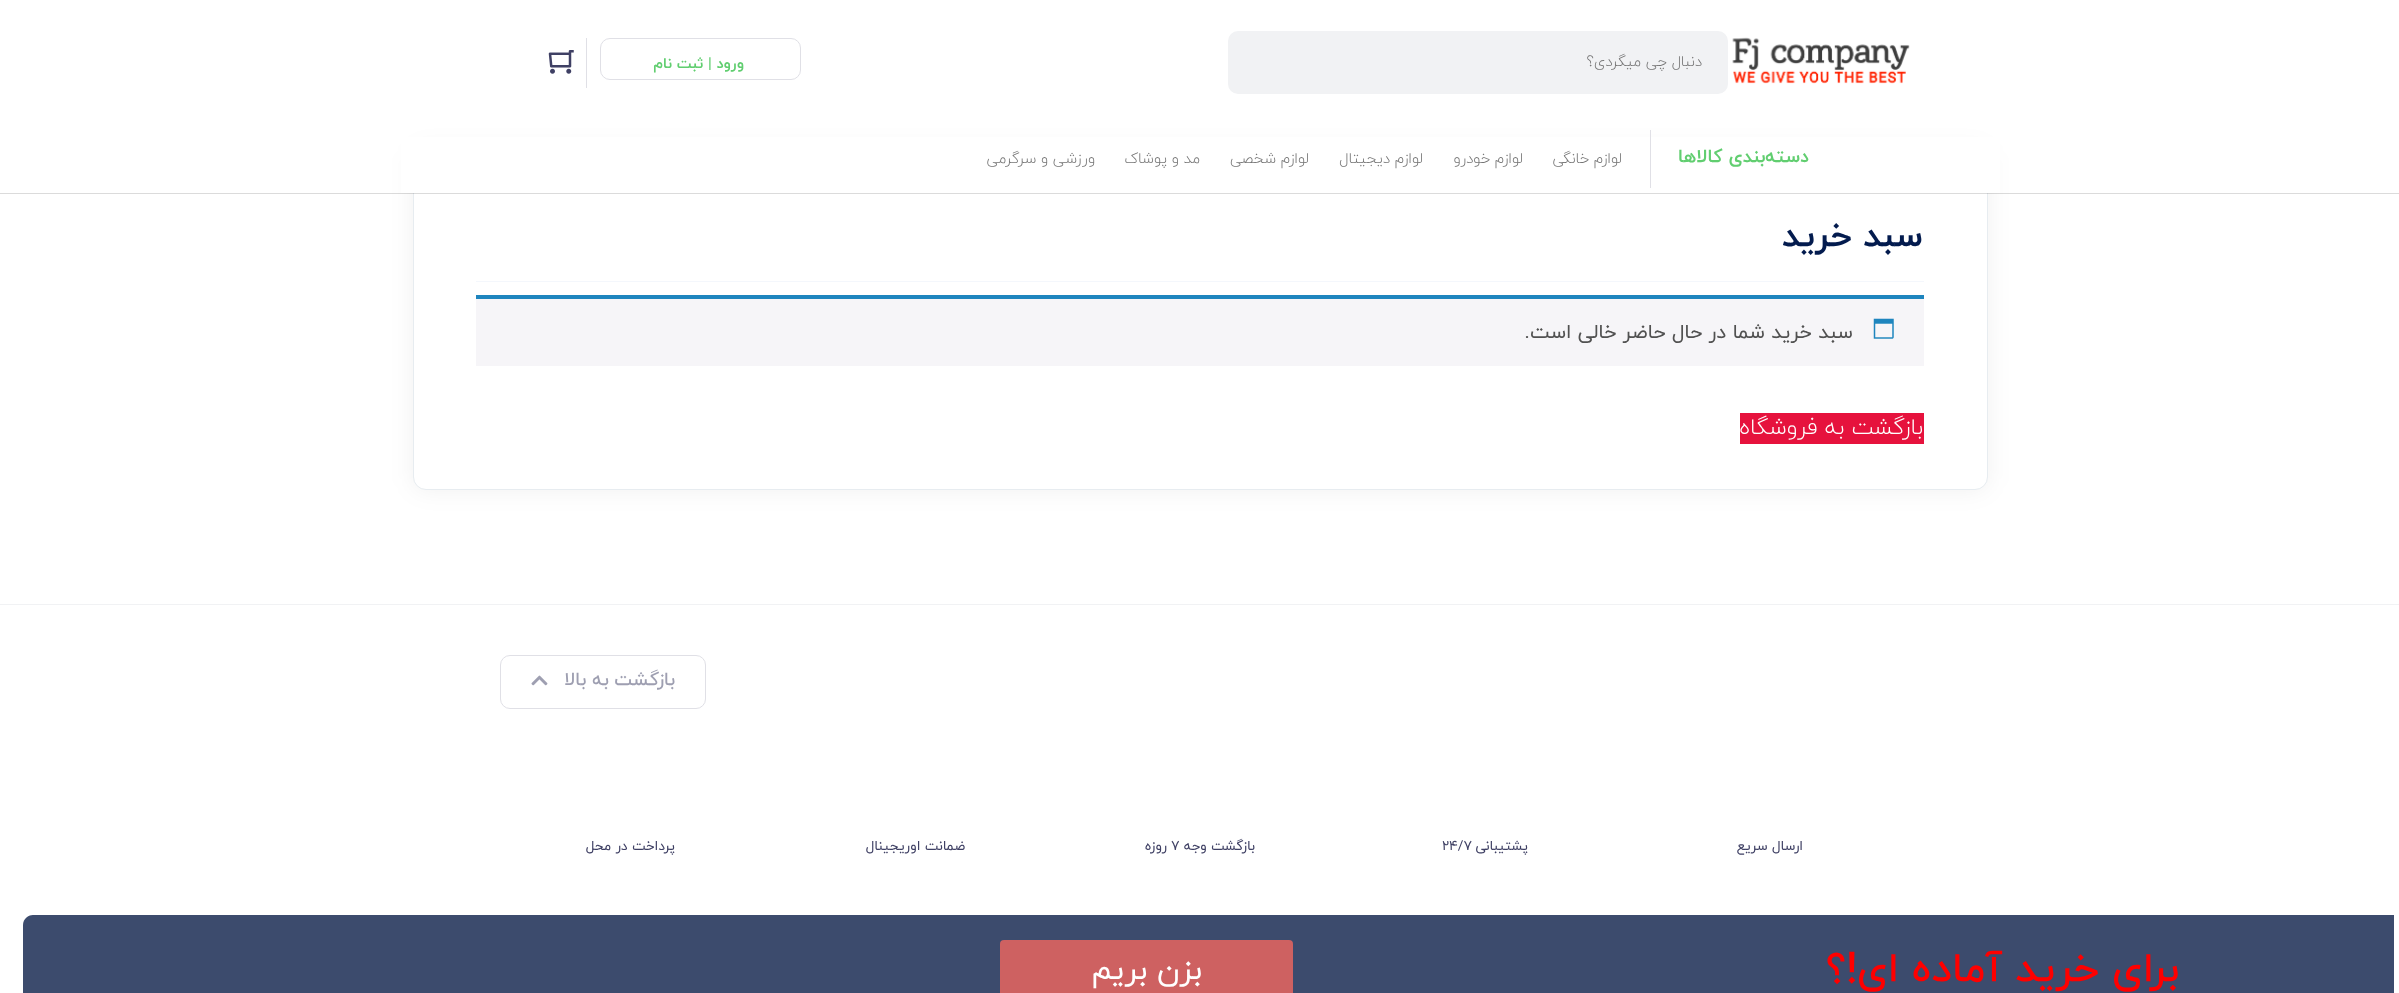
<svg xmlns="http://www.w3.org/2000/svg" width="2399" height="993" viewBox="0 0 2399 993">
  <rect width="100%" height="100%" fill="#fff"/>
  <image x="1732" y="37" width="178" height="47" href="img/1.png"/>
  <rect x="1228" y="31" width="500" height="63" rx="10" fill="#f1f2f4"/>
  <rect x="600.5" y="38.5" width="200" height="41" rx="9.5" fill="none" stroke="#e0e0e6"/>
  <path d="M586 38h1v50H586z" fill="#e0e0e6"/>
  <image x="548" y="50" width="26" height="24" href="img/2.png"/>
  <rect x="413" y="149" width="1575" height="341" rx="13" fill="#0000000f" filter="blur(12.5px)"/>
  <rect x="413.5" y="149.5" width="1574" height="340" rx="12.5" fill="#fff" stroke="#e7ecf0"/>
  <path d="M0 193h2399v1H0z" fill="#00000024"/>
  <path d="M401 137h1599v56H401z" fill="#fff"/>
  <path d="M1650 130h1v58H1650z" fill="#e0e0e6"/>
  <path d="M476 281h1448v1H476z" fill="#f4f7fc"/>
  <path d="M476 299h1448v67H476z" fill="#f6f5f8"/>
  <path d="M476 295h1448v4H476z" fill="#1e85be"/>
  <image x="1873" y="318" width="21" height="21" href="img/3.png"/>
  <path d="M1740 413h184v31H1740z" fill="#e6123d"/>
  <path d="M0 604h2399v1H0z" fill="#f1f2f4"/>
  <rect x="500.5" y="655.5" width="205" height="53" rx="9.5" fill="none" stroke="#e0e0e6"/>
  <image x="531" y="675" width="17" height="11" href="img/4.png"/>
  <path d="M1318 915h1076v78H1318z" fill="#3c4b6d"/>
  <path d="M33 915H1318V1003H33C27.5 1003 23 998.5 23 993V925C23 919.5 27.5 915 33 915Z" fill="#3c4b6d"/>
  <rect x="1000" y="940" width="293" height="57" rx="4" fill="#ce6161"/>
  <text x="1702" y="66" font-family="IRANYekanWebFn" font-size="15" font-weight="300" direction="rtl" fill="#757575">دنبال چی میگردی؟</text>
  <text x="744" y="68" font-family="IRANYekanWebFn" font-size="15" font-weight="bold" direction="rtl" fill="#61ce70">ورود | ثبت نام</text>
  <text x="1809" y="162" font-family="IRANYekanWebFn" font-size="18.75" font-weight="bold" direction="rtl" fill="#61ce70">دسته‌بندی کالاها</text>
  <g font-family="IRANYekanWebFn" font-size="15" font-weight="300" direction="rtl" fill="#757575">
    <text x="1622" y="163">لوازم خانگی</text>
    <text x="1523" y="163">لوازم خودرو</text>
    <text x="1423" y="163">لوازم دیجیتال</text>
    <text x="1309" y="163">لوازم شخصی</text>
    <text x="1200" y="163">مد و پوشاک</text>
    <text x="1095" y="163">ورزشی و سرگرمی</text>
  </g>
  <text x="1923" y="246" font-family="IRANYekanWebFn" font-size="35" font-weight="bold" direction="rtl" fill="#031b4e">سبد خرید</text>
  <text x="1853" y="338" font-family="IRANYekanWebFn" font-size="20" direction="rtl" fill="#515151">سبد خرید شما در حال حاضر خالی است.</text>
  <text x="1923" y="434" font-family="IRANYekanWebFn" font-size="22.5" font-weight="300" direction="rtl" fill="#fff">بازگشت به فروشگاه</text>
  <text x="675" y="685" font-family="IRANYekanWebFn" font-size="18.75" font-weight="500" direction="rtl" fill="#9e9fb1">بازگشت به بالا</text>
  <g font-family="IRANYekanWebFn" font-size="13.75" direction="rtl" fill="#3f4064">
    <text x="1803" y="850">ارسال سریع</text>
    <text x="1528" y="850">پشتیبانی</text>
  </g>
  <text x="1442" y="850" font-family="IRANYekanWebFn" font-size="13.75" fill="#3f4064">۲۴/۷</text>
  <text x="1255" y="850" font-family="IRANYekanWebFn" font-size="13.75" direction="rtl" fill="#3f4064">بازگشت وجه</text>
  <text x="1171" y="850" font-family="IRANYekanWebFn" font-size="13.75" fill="#3f4064">۷</text>
  <g font-family="IRANYekanWebFn" font-size="13.75" direction="rtl" fill="#3f4064">
    <text x="1167" y="850">روزه</text>
    <text x="965" y="850">ضمانت اوریجینال</text>
    <text x="675" y="850">پرداخت در محل</text>
  </g>
  <text x="2179" y="981" font-family="IRANYekanWebFn" font-size="41.25" font-weight="500" direction="rtl" fill="#f00">برای خرید آماده ای!؟</text>
  <text x="1202" y="979" font-family="IRANYekanWebFn" font-size="31" direction="rtl" fill="#fff">بزن بریم</text>
</svg>
